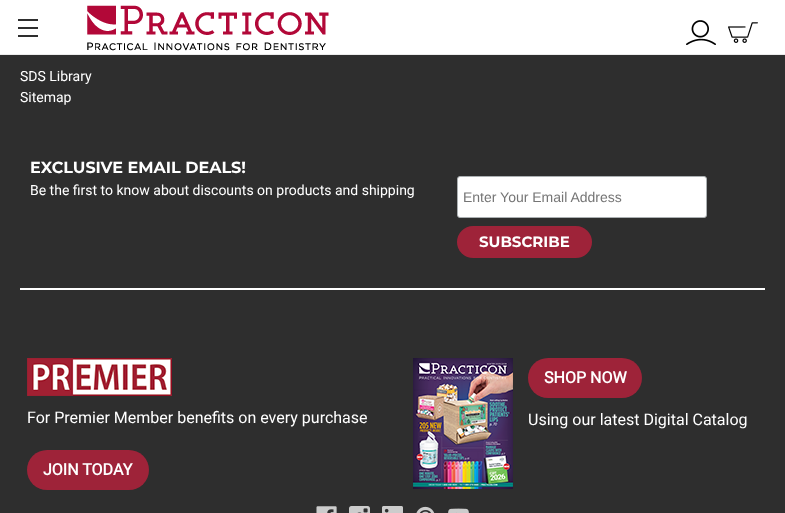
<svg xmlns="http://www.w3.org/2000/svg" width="785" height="513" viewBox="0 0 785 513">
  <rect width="100%" height="100%" fill="#2e2e2e"/>
  <path d="M0 0h785v54H0z" fill="#fff"/>
  <path d="M0 54h785v1H0z" fill="#ebebeb"/>
  <path d="M18 27h20v2H18z" fill="#2e2e2e"/>
  <path d="M18 19h20v2H18z" fill="#2e2e2e"/>
  <path d="M18 35h20v2H18z" fill="#2e2e2e"/>
  <image x="87" y="5" width="242" height="46" href="img/1.png"/>
  <image x="686" y="20" width="30" height="25" href="img/2.png"/>
  <image x="728" y="22" width="30" height="21" href="img/3.png"/>
  <rect x="457.5" y="176.5" width="249" height="41" rx="2.5" fill="#fff" stroke="#abb0b2"/>
  <rect x="457" y="226" width="135" height="32" rx="16" fill="#9e2339"/>
  <path d="M20 288h745v2H20z" fill="#fff"/>
  <image x="413" y="358" width="100" height="131" href="img/4.png"/>
  <rect x="528" y="358" width="114" height="40" rx="20" fill="#9e2339"/>
  <image x="27" y="358" width="145" height="38" href="img/5.png"/>
  <rect x="27" y="450" width="122" height="40" rx="20" fill="#9e2339"/>
  <image x="316" y="506" width="21" height="7" href="img/6.png"/>
  <image x="349" y="506" width="21" height="7" href="img/7.png"/>
  <image x="382" y="506" width="21" height="7" href="img/8.png"/>
  <image x="416" y="506" width="19" height="7" href="img/9.png"/>
  <image x="448" y="508" width="21" height="5" href="img/10.png"/>
  <g font-family="Roboto" font-size="14" fill="#fff">
    <text x="20" y="81">SDS Library</text>
    <text x="20" y="102">Sitemap</text>
  </g>
  <text x="30" y="173" font-family="Montserrat" font-size="16" font-weight="bold" fill="#fff">EXCLUSIVE EMAIL DEALS!</text>
  <text x="30" y="195" font-family="Roboto" font-size="14" fill="#fff">Be the first to know about discounts on products and shipping</text>
  <text x="463" y="202" font-family="Liberation Sans" font-size="14" fill="#757575">Enter Your Email Address</text>
  <text x="479" y="247" font-family="Montserrat" font-size="15" font-weight="bold" fill="#fff">SUBSCRIBE</text>
  <text x="544" y="383" font-family="Roboto" font-size="16" font-weight="bold" fill="#fff">SHOP NOW</text>
  <g font-family="Roboto" font-size="16" fill="#fff">
    <text x="528" y="425">Using our latest Digital Catalog</text>
    <text x="27" y="423">For Premier Member benefits on every purchase</text>
  </g>
  <text x="43" y="475" font-family="Roboto" font-size="16" font-weight="bold" fill="#fff">JOIN TODAY</text>
</svg>
